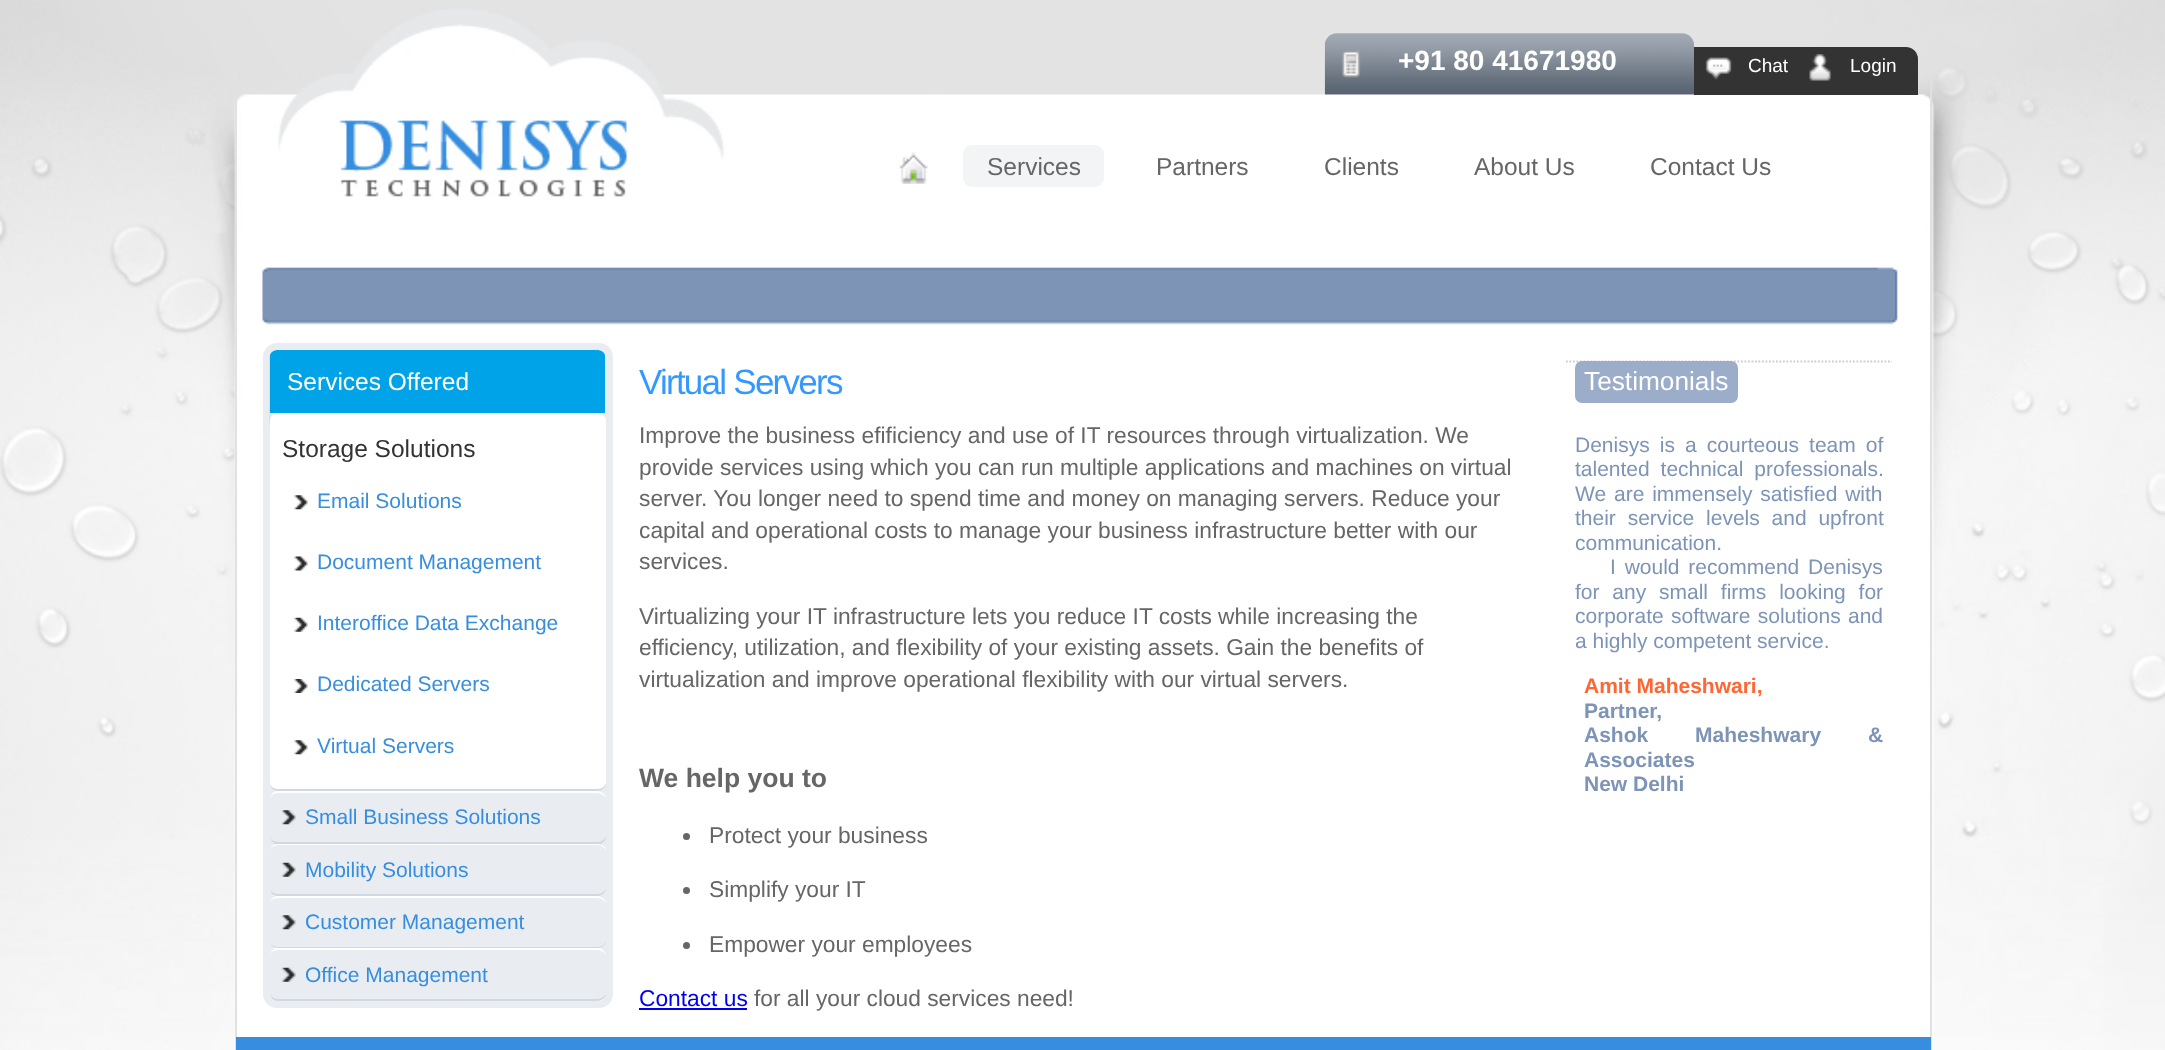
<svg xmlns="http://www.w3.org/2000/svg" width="2165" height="1050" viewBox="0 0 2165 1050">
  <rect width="100%" height="100%" fill="#fff"/>
  <image x="0" y="0" width="2165" height="1050" href="img/1.png"/>
  <path d="M1930 80h2v970H1930z" fill="#e1e1e1"/>
  <path d="M235 99h2v951H235z" fill="#e1e1e1"/>
  <path d="M1337 33H1682C1688.5 33 1694 38.5 1694 45V95H1325V45C1325 38.5 1330.5 33 1337 33Z" fill="#cecdd8"/>
  <image x="1324" y="33" width="370" height="62" href="img/2.png"/>
  <image x="1342" y="49" width="19" height="29" href="img/3.png"/>
  <path d="M1694 47H1906C1912.5 47 1918 52.5 1918 59V95H1694Z" fill="#333"/>
  <image x="1705" y="57" width="27" height="23" href="img/4.png"/>
  <image x="1809" y="54" width="22" height="27" href="img/5.png"/>
  <image x="339" y="120" width="289" height="77" href="img/6.png"/>
  <image x="899" y="152" width="29" height="32" href="img/7.png"/>
  <rect x="963" y="145" width="141" height="42" rx="9" fill="#f2f4f6"/>
  <image x="262" y="267" width="1636" height="58" href="img/8.png"/>
  <rect x="266.5" y="346.5" width="343" height="658" rx="10.5" fill="none" stroke="#e9edf2" stroke-width="7"/>
  <image x="269" y="350" width="337" height="74" href="img/9.png"/>
  <path d="M270 413H606V994C606 998 603 1001 599 1001H277C273 1001 270 998 270 994Z" fill="#e9edf2"/>
  <rect x="270" y="413" width="336" height="378" rx="9" fill="#fff"/>
  <path d="M278 413H597C600 413 606 416 606 420C604 417 601 415 597 415H278C273 415 270 418 270 422C270 417 273 413 278 413Z" fill="#fff"/>
  <path d="M606 785C604 789 601 791 597 791H278C273 791 270 787 270 782C270 786 273 789 278 789H597C601 789 604 787 606 784Z" fill="#d0d8e2"/>
  <image x="293" y="495" width="15" height="15" href="img/10.png"/>
  <image x="293" y="556" width="15" height="15" href="img/11.png"/>
  <image x="293" y="617" width="15" height="15" href="img/12.png"/>
  <image x="293" y="679" width="15" height="14" href="img/13.png"/>
  <image x="293" y="740" width="15" height="15" href="img/10.png"/>
  <image x="281" y="810" width="15" height="15" href="img/14.png"/>
  <path d="M278 791H597C600 791 606 794 606 798C604 795 601 793 597 793H278C273 793 270 796 270 800C270 795 273 791 278 791Z" fill="#fff"/>
  <path d="M606 838C605 841 603 843 600 844H275C272 842 270 839 270 835C270 839 273 842 278 842H597C601 842 604 840 606 837Z" fill="#d0d8e2"/>
  <image x="281" y="862" width="15" height="15" href="img/15.png"/>
  <path d="M278 844H597C600 844 606 846 606 850C604 847 601 845 597 845H278C273 845 270 848 270 852C270 847 273 844 278 844Z" fill="#fff"/>
  <path d="M606 890C604 894 601 896 597 896H278C273 896 270 892 270 887C270 891 273 894 278 894H597C601 894 604 892 606 889Z" fill="#d0d8e2"/>
  <image x="281" y="915" width="15" height="15" href="img/14.png"/>
  <path d="M278 896H597C600 896 606 899 606 903C604 900 601 898 597 898H278C273 898 270 901 270 905C270 900 273 896 278 896Z" fill="#fff"/>
  <path d="M606 942V943C604 946 601 948 597 948H278C273 948 270 945 270 940C270 944 273 947 278 947H597C601 947 604 945 606 942Z" fill="#d0d8e2"/>
  <image x="281" y="967" width="15" height="15" href="img/15.png"/>
  <path d="M600 948H275C272 950 270 953 270 957C270 953 273 950 278 950H597C601 950 604 952 606 955C606 952 602 949 600 948Z" fill="#fff"/>
  <path d="M278 1001C273 1001 270 997 270 992C270 996 273 999 278 999H597C601 999 604 997 606 994C606 998 600 1001 597 1001Z" fill="#d0d8e2"/>
  <path d="M1566 361.5H1892" fill="none" stroke="#ccc" stroke-width="1.8" stroke-dasharray="1.75 1.75"/>
  <rect x="1575" y="361" width="163" height="42" rx="7" fill="#9badc8"/>
  <circle cx="686.5" cy="836.5" r="3.5" fill="#666"/>
  <circle cx="686.5" cy="890.5" r="3.5" fill="#666"/>
  <circle cx="686.5" cy="945.5" r="3.5" fill="#666"/>
  <path d="M639 1008h108v2H639z" fill="#00e"/>
  <path d="M236 1037h1695v13H236z" fill="#378de0"/>
  <text x="1398" y="70" font-family="Liberation Sans" font-size="28" font-weight="bold" fill="#fff">+91 80 41671980</text>
  <g font-family="Liberation Sans" font-size="19" fill="#fff">
    <text x="1748" y="72">Chat</text>
    <text x="1850" y="72">Login</text>
  </g>
  <g font-family="Liberation Sans" font-size="24.5" fill="#666">
    <text x="987" y="175">Services</text>
    <text x="1156" y="175">Partners</text>
    <text x="1324" y="175">Clients</text>
    <text x="1474" y="175">About Us</text>
    <text x="1650" y="175">Contact Us</text>
  </g>
  <text x="287" y="390" font-family="Liberation Sans" font-size="24.5" fill="#fff">Services Offered</text>
  <text x="282" y="457" font-family="Liberation Sans" font-size="24.5" fill="#333">Storage Solutions</text>
  <g font-family="Liberation Sans" font-size="21" fill="#378ede">
    <text x="317" y="508">Email Solutions</text>
    <text x="317" y="569">Document Management</text>
    <text x="317" y="630">Interoffice Data Exchange</text>
    <text x="317" y="691">Dedicated Servers</text>
    <text x="317" y="753">Virtual Servers</text>
    <text x="305" y="824">Small Business Solutions</text>
    <text x="305" y="877">Mobility Solutions</text>
    <text x="305" y="929">Customer Management</text>
    <text x="305" y="982">Office Management</text>
  </g>
  <text x="639" y="394" font-family="Liberation Sans" font-size="35" letter-spacing="-1.75" fill="#39f">Virtual Servers</text>
  <g font-family="Liberation Sans" font-size="22.75" fill="#666">
    <text x="639" y="443">Improve the business efificiency and use of IT resources through virtualization. We</text>
    <text x="639" y="475">provide services using which you can run multiple applications and machines on virtual</text>
    <text x="639" y="506">server. You longer need to spend time and money on managing servers. Reduce your</text>
    <text x="639" y="538">capital and operational costs to manage your business infrastructure better with our</text>
    <text x="639" y="569">services.</text>
    <text x="639" y="624">Virtualizing your IT infrastructure lets you reduce IT costs while increasing the</text>
    <text x="639" y="655">efficiency, utilization, and flexibility of your existing assets. Gain the benefits of</text>
    <text x="639" y="687">virtualization and improve operational flexibility with our virtual servers.</text>
  </g>
  <text x="1584" y="390" font-family="Liberation Sans" font-size="26.25" fill="#fff">Testimonials</text>
  <g font-family="Liberation Sans" font-size="21" fill="#7d94b6">
    <text x="1575" y="452" word-spacing="4.25">Denisys is a courteous team of</text>
    <text x="1575" y="476" word-spacing="5">talented technical professionals.</text>
    <text x="1575" y="501" word-spacing="2">We are immensely satisfied with</text>
    <text x="1575" y="525" word-spacing="6">their service levels and upfront</text>
    <text x="1575" y="550">communication.</text>
    <text x="1610" y="574" word-spacing="3">I would recommend Denisys</text>
    <text x="1575" y="599" word-spacing="7">for any small firms looking for</text>
    <text x="1575" y="623" word-spacing="1.5">corporate software solutions and</text>
    <text x="1575" y="648">a highly competent service.</text>
  </g>
  <text x="1584" y="693" font-family="Liberation Sans" font-size="21" font-weight="bold" fill="#f63">Amit Maheshwari,</text>
  <g font-family="Liberation Sans" font-size="21" font-weight="bold" fill="#7d94b6">
    <text x="1584" y="718">Partner,</text>
    <text x="1584" y="742" word-spacing="41">Ashok Maheshwary &amp;</text>
    <text x="1584" y="767">Associates</text>
    <text x="1584" y="791">New Delhi</text>
  </g>
  <text x="639" y="787" font-family="Liberation Sans" font-size="26.5" font-weight="bold" fill="#666">We help you to</text>
  <g font-family="Liberation Sans" font-size="22.75" fill="#666">
    <text x="709" y="843">Protect your business</text>
    <text x="709" y="897">Simplify your IT</text>
    <text x="709" y="952">Empower your employees</text>
  </g>
  <text x="639" y="1006" font-family="Liberation Sans" font-size="22.75" fill="#00e">Contact us</text>
  <text x="754" y="1006" font-family="Liberation Sans" font-size="22.75" fill="#666">for all your cloud services need!</text>
</svg>
